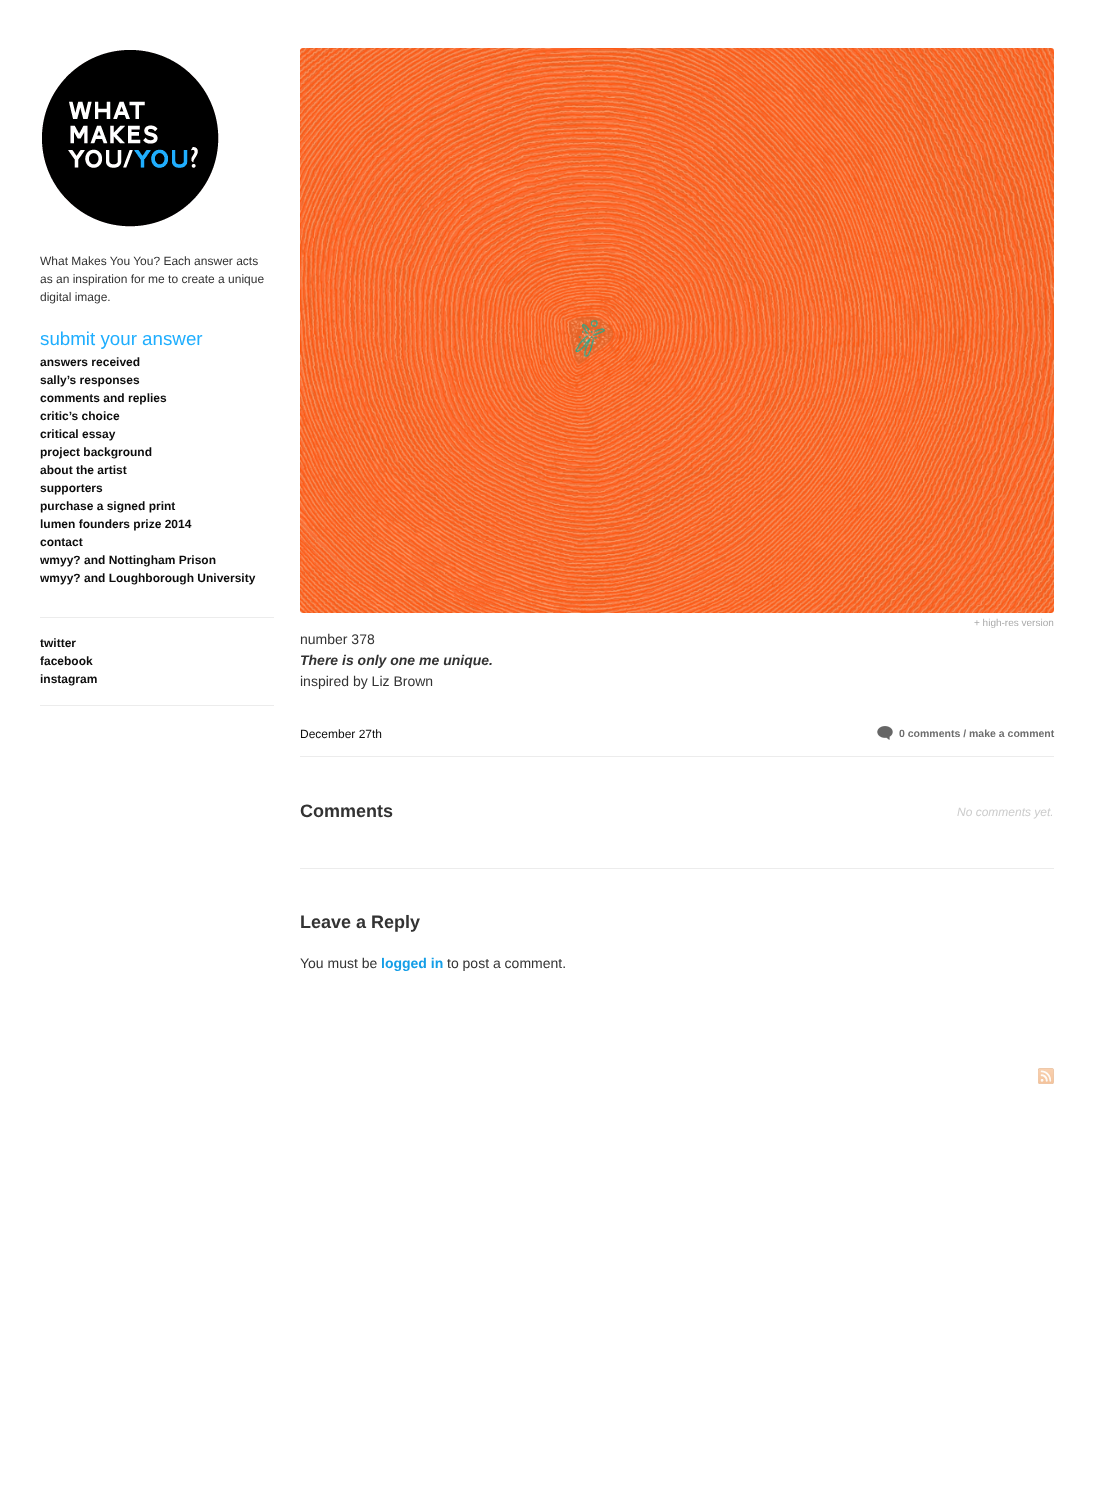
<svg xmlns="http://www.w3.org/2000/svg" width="1094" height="1501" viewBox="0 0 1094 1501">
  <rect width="100%" height="100%" fill="#fff"/>
  <image x="42" y="50" width="177" height="177" href="img/1.png"/>
  <path d="M40 617h234v1H40z" fill="#ececec"/>
  <path d="M40 705h234v1H40z" fill="#ececec"/>
  <path d="M300 756h754v1H300z" fill="#ececec"/>
  <image x="300" y="48" width="754" height="565" href="img/2.png"/>
  <image x="877" y="726" width="16" height="14" href="img/3.png"/>
  <path d="M300 868h754v1H300z" fill="#ececec"/>
  <image x="1038" y="1068" width="16" height="16" href="img/4.png"/>
  <g font-family="Liberation Sans" font-size="12" fill="#333">
    <text x="40" y="265">What Makes You You? Each answer acts</text>
    <text x="40" y="283">as an inspiration for me to create a unique</text>
    <text x="40" y="301">digital image.</text>
  </g>
  <text x="40" y="345" font-family="Liberation Sans" font-size="18.75" fill="#1faefe">submit your answer</text>
  <g font-family="Liberation Sans" font-size="12" font-weight="bold" fill="#0d0d0d">
    <text x="40" y="366">answers received</text>
    <text x="40" y="384">sally’s responses</text>
    <text x="40" y="402">comments and replies</text>
    <text x="40" y="420">critic’s choice</text>
    <text x="40" y="438">critical essay</text>
    <text x="40" y="456">project background</text>
    <text x="40" y="474">about the artist</text>
    <text x="40" y="492">supporters</text>
    <text x="40" y="510">purchase a signed print</text>
    <text x="40" y="528">lumen founders prize 2014</text>
    <text x="40" y="546">contact</text>
    <text x="40" y="564">wmyy? and Nottingham Prison</text>
    <text x="40" y="582">wmyy? and Loughborough University</text>
    <text x="40" y="647">twitter</text>
    <text x="40" y="665">facebook</text>
    <text x="40" y="683">instagram</text>
  </g>
  <text x="974" y="626" font-family="Liberation Sans" font-size="10" fill="#aaa">+ high-res version</text>
  <text x="300" y="644" font-family="Liberation Sans" font-size="14" fill="#333">number 378</text>
  <text x="300" y="665" font-family="Liberation Sans" font-size="14" font-weight="bold" font-style="italic" fill="#333">There is only one me unique.</text>
  <text x="300" y="686" font-family="Liberation Sans" font-size="14" fill="#333">inspired by Liz Brown</text>
  <text x="300" y="738" font-family="Liberation Sans" font-size="12" fill="#0d0d0d">December 27th</text>
  <text x="899" y="737" font-family="Liberation Sans" font-size="10.5" font-weight="bold" fill="#6e6e6e">0 comments / make a comment</text>
  <text x="300" y="817" font-family="Liberation Sans" font-size="18" font-weight="bold" fill="#333">Comments</text>
  <text x="957" y="816" font-family="Liberation Sans" font-size="12" font-style="italic" fill="#ccc">No comments yet.</text>
  <text x="300" y="928" font-family="Liberation Sans" font-size="18" font-weight="bold" fill="#333">Leave a Reply</text>
  <text x="300" y="968" font-family="Liberation Sans" font-size="14" fill="#333">You must be</text>
  <text x="381" y="968" font-family="Liberation Sans" font-size="14" font-weight="bold" fill="#149ee7">logged in</text>
  <text x="447" y="968" font-family="Liberation Sans" font-size="14" fill="#333">to post a comment.</text>
</svg>
